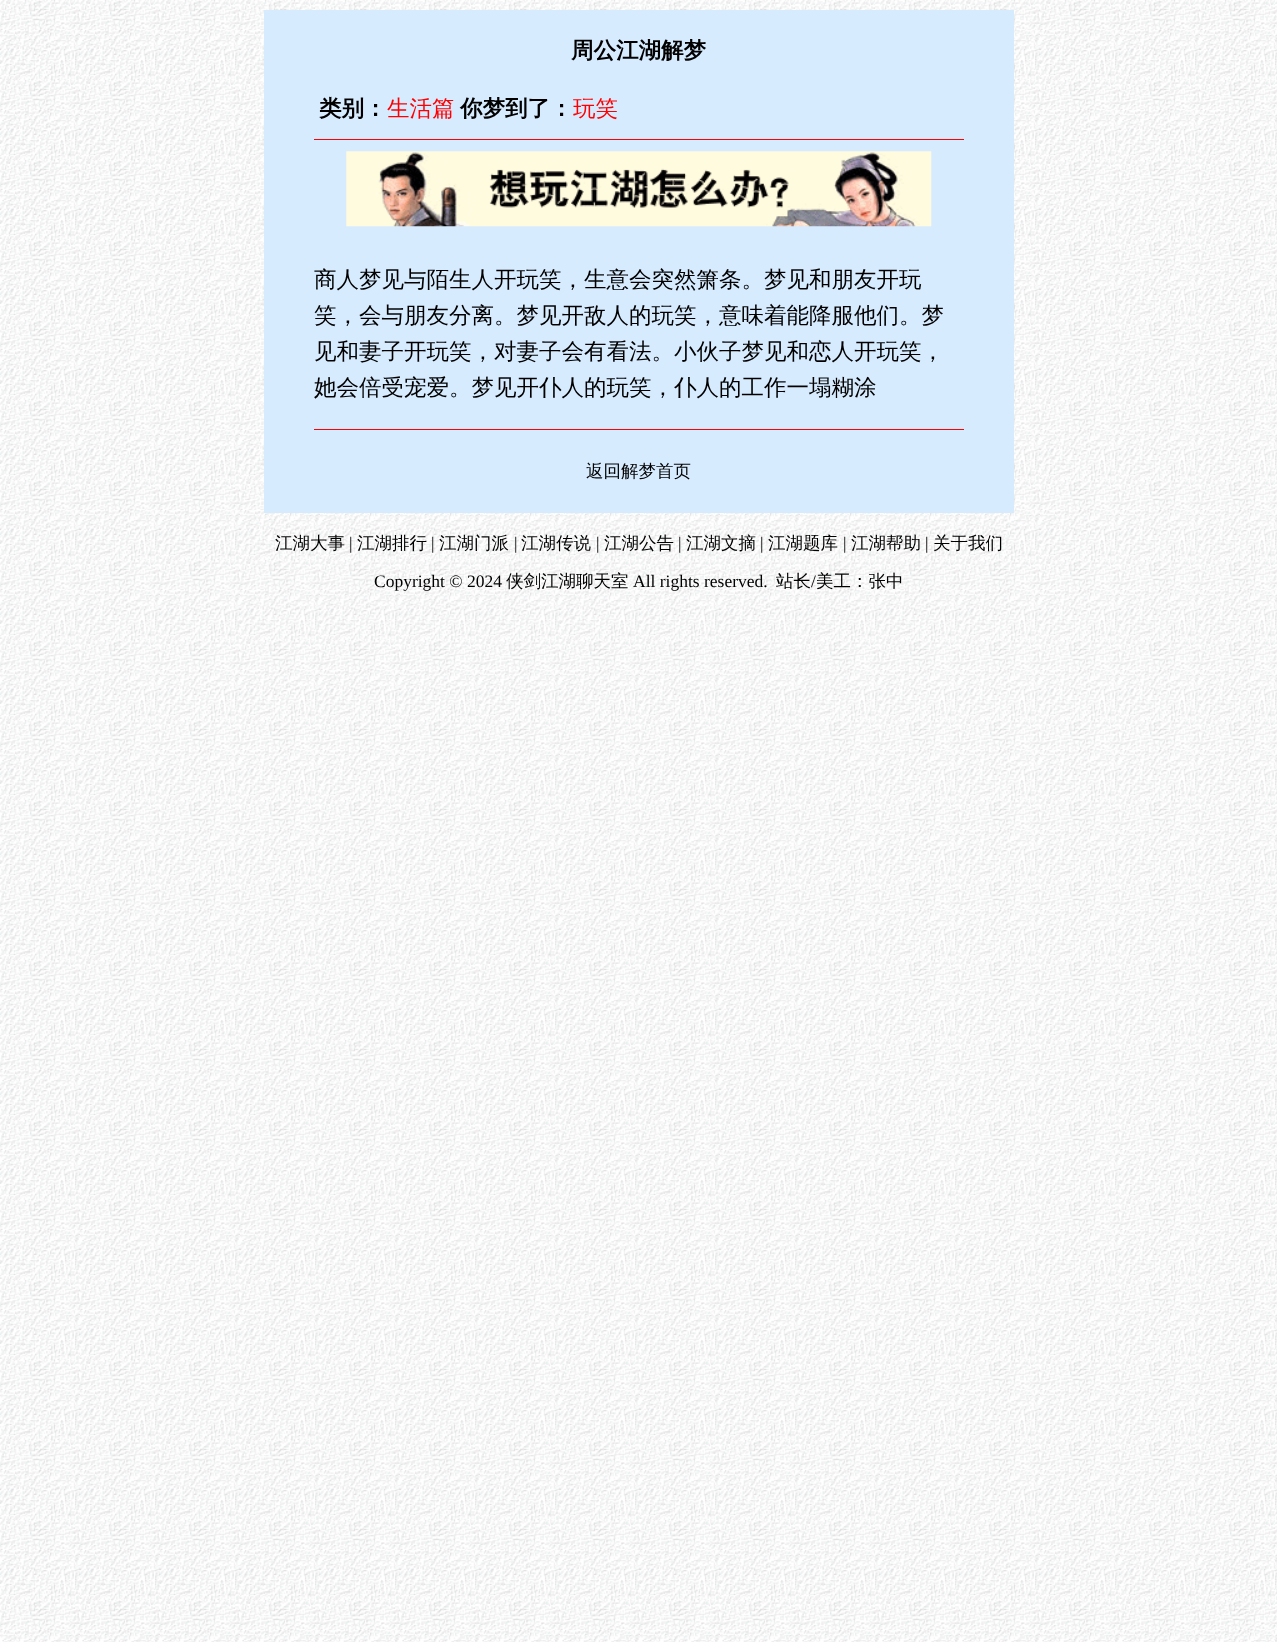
<svg xmlns="http://www.w3.org/2000/svg" width="1277" height="1642" viewBox="0 0 1277 1642">
  <rect width="100%" height="100%" fill="#fff"/>
  <image x="0" y="0" width="1277" height="1642" href="img/1.png"/>
  <path d="M264 10h750v503H264z" fill="#d7ebff"/>
  <path d="M314 139h650v1H314z" fill="#f00"/>
  <image x="346" y="151" width="586" height="76" href="img/2.png"/>
  <path d="M314 429h650v1H314z" fill="#f00"/>
  <g font-family="WenQuanYi Zen Hei" font-size="22.5" font-weight="bold" fill="#000">
    <text x="571" y="58">周公江湖解梦</text>
    <text x="319" y="116">类别：</text>
  </g>
  <text x="387" y="116" font-family="WenQuanYi Zen Hei" font-size="22.5" font-weight="500" fill="#f00">生活篇</text>
  <text x="460" y="116" font-family="WenQuanYi Zen Hei" font-size="22.5" font-weight="bold" fill="#000">你梦到了：</text>
  <text x="573" y="116" font-family="WenQuanYi Zen Hei" font-size="22.5" font-weight="500" fill="#f00">玩笑</text>
  <g font-family="WenQuanYi Zen Hei" font-size="22.5" font-weight="500" fill="#000">
    <text x="314" y="287">商人梦见与陌生人开玩笑，生意会突然箫条。梦见和朋友开玩</text>
    <text x="314" y="323">笑，会与朋友分离。梦见开敌人的玩笑，意味着能降服他们。梦</text>
    <text x="314" y="359">见和妻子开玩笑，对妻子会有看法。小伙子梦见和恋人开玩笑，</text>
    <text x="314" y="395">她会倍受宠爱。梦见开仆人的玩笑，仆人的工作一塌糊涂</text>
  </g>
  <g font-family="WenQuanYi Zen Hei" font-size="17.5" font-weight="500" fill="#000">
    <text x="586" y="477">返回解梦首页</text>
    <text x="275" y="549">江湖大事</text>
  </g>
  <text x="349" y="549" font-family="Liberation Serif" font-size="17.5" fill="#000">|</text>
  <text x="357" y="549" font-family="WenQuanYi Zen Hei" font-size="17.5" font-weight="500" fill="#000">江湖排行</text>
  <text x="431" y="549" font-family="Liberation Serif" font-size="17.5" fill="#000">|</text>
  <text x="439" y="549" font-family="WenQuanYi Zen Hei" font-size="17.5" font-weight="500" fill="#000">江湖门派</text>
  <text x="514" y="549" font-family="Liberation Serif" font-size="17.5" fill="#000">|</text>
  <text x="521" y="549" font-family="WenQuanYi Zen Hei" font-size="17.5" font-weight="500" fill="#000">江湖传说</text>
  <text x="596" y="549" font-family="Liberation Serif" font-size="17.5" fill="#000">|</text>
  <text x="604" y="549" font-family="WenQuanYi Zen Hei" font-size="17.5" font-weight="500" fill="#000">江湖公告</text>
  <text x="678" y="549" font-family="Liberation Serif" font-size="17.5" fill="#000">|</text>
  <text x="686" y="549" font-family="WenQuanYi Zen Hei" font-size="17.5" font-weight="500" fill="#000">江湖文摘</text>
  <text x="760" y="549" font-family="Liberation Serif" font-size="17.5" fill="#000">|</text>
  <text x="768" y="549" font-family="WenQuanYi Zen Hei" font-size="17.5" font-weight="500" fill="#000">江湖题库</text>
  <text x="843" y="549" font-family="Liberation Serif" font-size="17.5" fill="#000">|</text>
  <text x="851" y="549" font-family="WenQuanYi Zen Hei" font-size="17.5" font-weight="500" fill="#000">江湖帮助</text>
  <text x="925" y="549" font-family="Liberation Serif" font-size="17.5" fill="#000">|</text>
  <text x="933" y="549" font-family="WenQuanYi Zen Hei" font-size="17.5" font-weight="500" fill="#000">关于我们</text>
  <text x="374" y="587" font-family="Liberation Serif" font-size="17.5" fill="#000">Copyright © 2024</text>
  <text x="506" y="587" font-family="WenQuanYi Zen Hei" font-size="17.5" font-weight="500" fill="#000">侠剑江湖聊天室</text>
  <text x="633" y="587" font-family="Liberation Serif" font-size="17.5" fill="#000">All rights reserved.</text>
  <text x="776" y="587" font-family="WenQuanYi Zen Hei" font-size="17.5" font-weight="500" fill="#000">站长</text>
  <text x="811" y="587" font-family="Liberation Serif" font-size="17.5" fill="#000">/</text>
  <text x="816" y="587" font-family="WenQuanYi Zen Hei" font-size="17.5" font-weight="500" fill="#000">美工：张中</text>
</svg>
